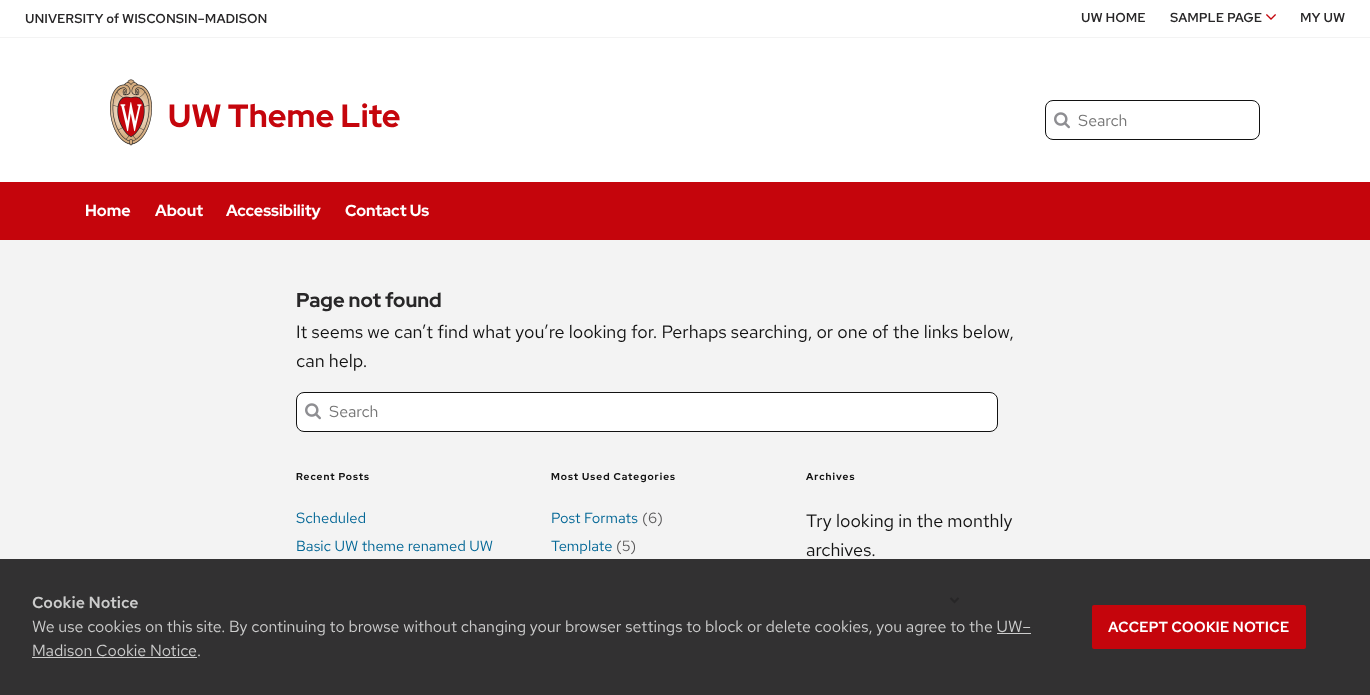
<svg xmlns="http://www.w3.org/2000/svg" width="1370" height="695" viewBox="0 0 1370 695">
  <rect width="100%" height="100%" fill="#f3f3f3"/>
  <path d="M0 559h1370v136H0z" fill="#323132"/>
  <path d="M0 0h1370v37H0z" fill="#fff"/>
  <image x="1266" y="14" width="10" height="6" href="img/1.png"/>
  <path d="M0 182h1370v58H0z" fill="#c5050c"/>
  <path d="M0 38h1370v144H0z" fill="#fff"/>
  <image x="110" y="79" width="42" height="67" href="img/2.png"/>
  <image x="1054" y="112" width="16" height="17" href="img/3.png"/>
  <rect x="1045.5" y="100.5" width="214" height="39" rx="7.5" fill="none" stroke="#121212"/>
  <rect x="296" y="392" width="702" height="40" rx="8" fill="#fff"/>
  <image x="305" y="403" width="16" height="17" href="img/3.png"/>
  <rect x="296.5" y="392.5" width="701" height="39" rx="7.5" fill="none" stroke="#121212"/>
  <path d="M950.5 598L954.5 602L958.5 598" fill="none" stroke="#272627" stroke-width="2"/>
  <path d="M997 633h34v1H997z" fill="#ccc"/>
  <path d="M32 657h165v1H32z" fill="#ccc"/>
  <rect x="1092" y="605" width="214" height="44" rx="2" fill="#c5050c"/>
  <g font-family="Red Hat Text" font-size="13" font-weight="500" fill="#282728">
    <text x="1081" y="22">UW HOME</text>
    <text x="1170" y="22">SAMPLE PAGE</text>
    <text x="1300" y="22">MY UW</text>
  </g>
  <g font-family="Red Hat Display" font-size="16" font-weight="bold" fill="#fff">
    <text x="85" y="216">Home</text>
    <text x="155" y="216">About</text>
    <text x="226" y="216">Accessibility</text>
    <text x="345" y="216">Contact Us</text>
  </g>
  <text x="25" y="23" font-family="Red Hat Text" font-size="13" font-weight="500" fill="#282728">UNIVERSITY of WISCONSIN–MADISON</text>
  <text x="168" y="127" font-family="Red Hat Display" font-size="32" font-weight="bold" fill="#c5050c">UW Theme Lite</text>
  <text x="1078" y="126" font-family="Red Hat Text" font-size="16" fill="#757575">Search</text>
  <text x="296" y="307" font-family="Red Hat Display" font-size="20" font-weight="bold" fill="#282728">Page not found</text>
  <g font-family="Red Hat Text" font-size="18" fill="#121212">
    <text x="296" y="338">It seems we can’t find what you’re looking for. Perhaps searching, or one of the links below,</text>
    <text x="296" y="367">can help.</text>
  </g>
  <text x="329" y="417" font-family="Red Hat Text" font-size="16" fill="#757575">Search</text>
  <text x="296" y="480" font-family="Red Hat Display" font-size="10" font-weight="bold" letter-spacing="1" fill="#121212">Recent Posts</text>
  <g font-family="Red Hat Text" font-size="14.75" fill="#036796">
    <text x="296" y="523">Scheduled</text>
    <text x="296" y="551">Basic UW theme renamed UW</text>
  </g>
  <text x="551" y="480" font-family="Red Hat Display" font-size="10" font-weight="bold" letter-spacing="1" fill="#121212">Most Used Categories</text>
  <text x="551" y="523" font-family="Red Hat Text" font-size="14.75" fill="#036796">Post Formats</text>
  <text x="642" y="523" font-family="Red Hat Text" font-size="14.75" fill="#585758">(6)</text>
  <text x="551" y="551" font-family="Red Hat Text" font-size="14.75" fill="#036796">Template</text>
  <text x="616" y="551" font-family="Red Hat Text" font-size="14.75" fill="#585758">(5)</text>
  <text x="806" y="480" font-family="Red Hat Display" font-size="10" font-weight="bold" letter-spacing="1" fill="#121212">Archives</text>
  <g font-family="Red Hat Text" font-size="18" fill="#121212">
    <text x="806" y="527">Try looking in the monthly</text>
    <text x="806" y="556">archives.</text>
  </g>
  <text x="32" y="608" font-family="Red Hat Text" font-size="16" font-weight="600" fill="#ccc">Cookie Notice</text>
  <g font-family="Red Hat Text" font-size="16" fill="#ccc">
    <text x="32" y="632">We use cookies on this site. By continuing to browse without changing your browser settings to block or delete cookies, you agree to the UW–</text>
    <text x="32" y="656">Madison Cookie Notice</text>
    <text x="197" y="656">.</text>
  </g>
  <text x="1108" y="632" font-family="Red Hat Text" font-size="14.75" font-weight="600" fill="#fff">ACCEPT COOKIE NOTICE</text>
</svg>
